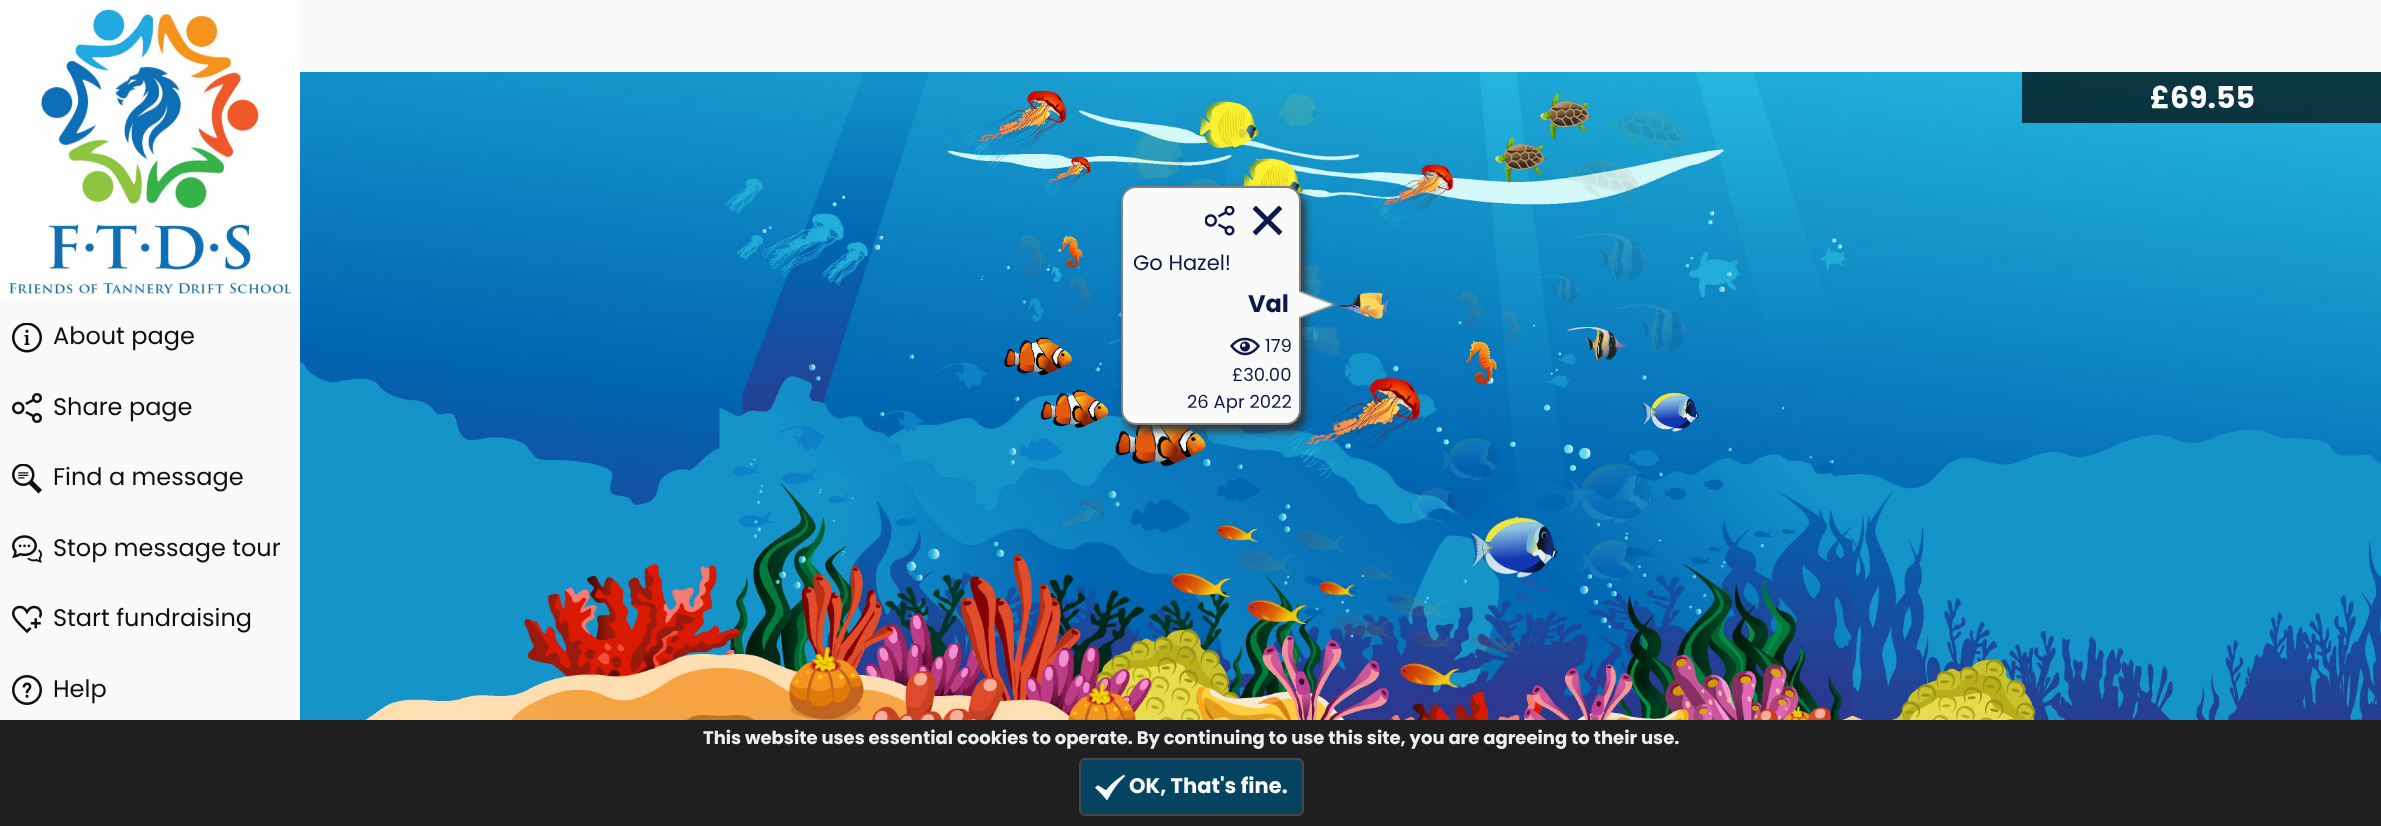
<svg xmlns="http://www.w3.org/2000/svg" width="2381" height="826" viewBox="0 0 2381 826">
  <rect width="100%" height="100%" fill="#fafafa"/>
  <image x="300" y="72" width="2081" height="648" href="img/1.png"/>
  <path d="M2022 72h359v51H2022z" fill="#000000b3"/>
  <image x="0" y="0" width="300" height="300" href="img/2.png"/>
  <image x="12" y="323" width="30" height="30" href="img/3.png"/>
  <image x="12" y="393" width="30" height="30" href="img/4.png"/>
  <image x="12" y="464" width="30" height="30" href="img/5.png"/>
  <image x="12" y="535" width="30" height="28" href="img/6.png"/>
  <image x="12" y="605" width="30" height="29" href="img/7.png"/>
  <image x="12" y="675" width="30" height="30" href="img/8.png"/>
  <rect x="1125" y="192" width="180" height="239" rx="15" fill="#333" filter="blur(4.5px)"/>
  <rect x="1122" y="187" width="178" height="237" rx="14" fill="#fafafa" stroke="#808080" stroke-width="2"/>
  <image x="1205" y="206" width="30" height="30" href="img/9.png"/>
  <image x="1253" y="206" width="30" height="30" href="img/10.png"/>
  <image x="1230" y="337" width="30" height="19" href="img/11.png"/>
  <image x="1299" y="291" width="36" height="27" href="img/12.png"/>
  <path d="M0 720h2381v106H0z" fill="#1f1f1f"/>
  <rect x="1080" y="759" width="223" height="56" rx="5" fill="#054461" stroke="#474747" stroke-width="2"/>
  <image x="1095" y="774" width="30" height="27" href="img/13.png"/>
  <text x="2150" y="108" font-family="Poppins" font-size="30" font-weight="bold" fill="#fafafa">£69.55</text>
  <g font-family="Poppins" font-size="24" fill="#0f0f0f">
    <text x="53" y="344">About page</text>
    <text x="53" y="415">Share page</text>
    <text x="53" y="485">Find a message</text>
    <text x="53" y="556">Stop message tour</text>
    <text x="53" y="626">Start fundraising</text>
    <text x="53" y="697">Help</text>
  </g>
  <text x="1133" y="270" font-family="Poppins" font-size="21" fill="#0e194a">Go Hazel!</text>
  <text x="1248" y="312" font-family="Poppins" font-size="24" font-weight="bold" fill="#0e194a">Val</text>
  <g font-family="Poppins" font-size="18" fill="#0e194a">
    <text x="1265" y="352">179</text>
    <text x="1232" y="381">£30.00</text>
    <text x="1187" y="408">26 Apr 2022</text>
  </g>
  <text x="703" y="744" font-family="Poppins" font-size="18" font-weight="bold" fill="#eee">This website uses essential cookies to operate. By continuing to use this site, you are agreeing to their use.</text>
  <text x="1129" y="793" font-family="Poppins" font-size="21" font-weight="bold" fill="#fafafa">OK, That's fine.</text>
</svg>
